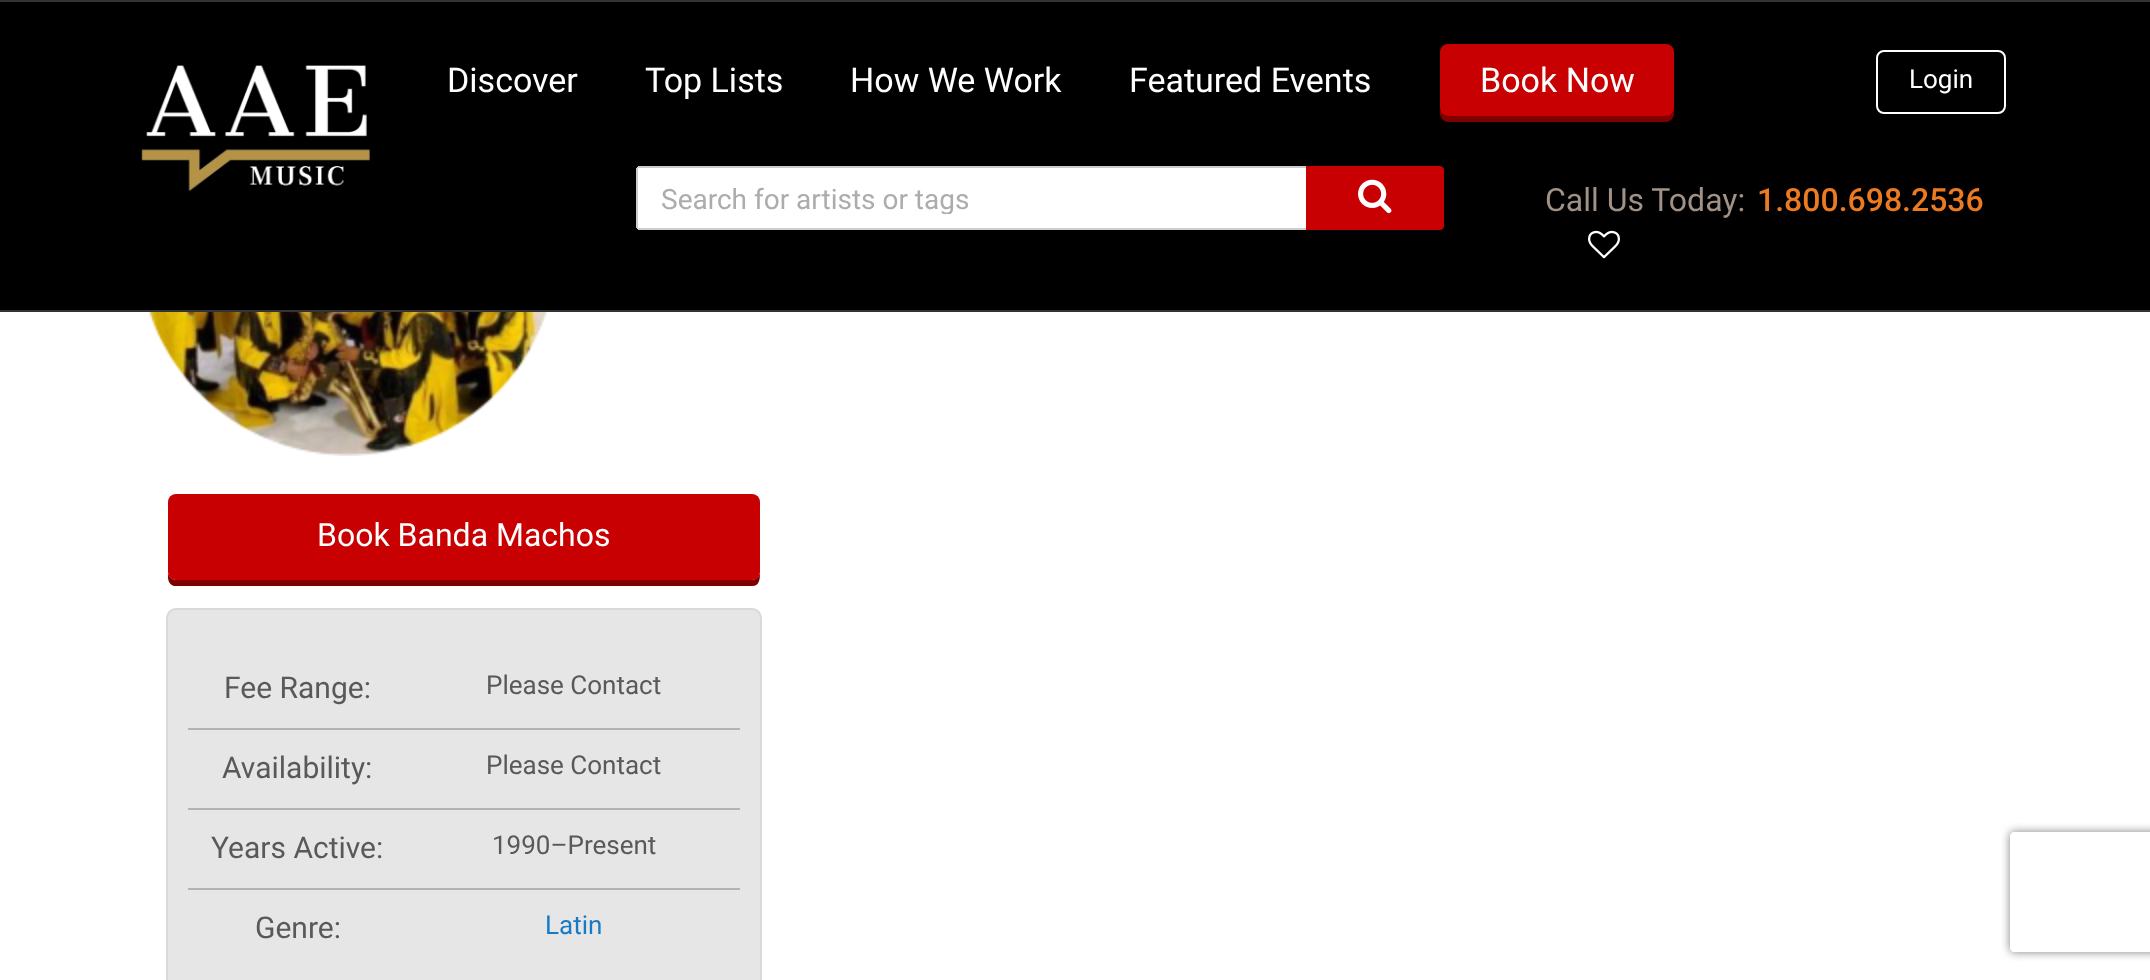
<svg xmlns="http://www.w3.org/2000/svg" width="2150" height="980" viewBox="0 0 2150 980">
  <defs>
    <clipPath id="clip1"><path d="M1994 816H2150V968H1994ZM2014 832H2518C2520 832 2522 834 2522 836V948C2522 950 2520 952 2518 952H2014C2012 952 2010 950 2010 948V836C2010 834 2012 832 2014 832Z" clip-rule="evenodd"/></clipPath>
    <clipPath id="clip2"><path d="M662 182h612v32H662z"/></clipPath>
  </defs>
  <rect width="100%" height="100%" fill="#fff"/>
  <path d="M0 2h2150v308H0z" fill="#000"/>
  <path d="M0 0h2150v2H0z" fill="#333"/>
  <path d="M0 310h2150v2H0z" fill="#333"/>
  <image x="141" y="65" width="229" height="127" href="img/1.png"/>
  <path d="M1440 108V114C1440 118 1444 122 1448 122H1666C1670 122 1674 118 1674 114V108C1674 112 1670 116 1666 116H1448C1444 116 1440 112 1440 108Z" fill="#800000"/>
  <rect x="1440" y="44" width="234" height="72" rx="8" fill="#c90001"/>
  <rect x="1877" y="51" width="128" height="62" rx="7" fill="none" stroke="#fff" stroke-width="2"/>
  <path d="M1305 167H1440C1441.5 167 1443 168.5 1443 170V226C1443 227.5 1441.5 229 1440 229H1305Z" fill="#c90001" stroke="#c90001" stroke-width="2"/>
  <path d="M640 166H1306V230H640C638 230 636 228 636 226V170C636 168 638 166 640 166Z" fill="#fff"/>
  <path d="M638 166h668v2H638z" fill="#ccc"/>
  <path d="M638 228h668v2H638z" fill="#ccc"/>
  <path d="M636 168h2v60H636z" fill="#ccc"/>
  <image x="1358" y="179" width="34" height="35" href="img/2.png"/>
  <image x="1588" y="230" width="32" height="29" href="img/3.png"/>
  <image x="148" y="312" width="400" height="144" href="img/4.png"/>
  <path d="M168 572C168 577 167 584 174 586H752C760 586 760 578 760 572C760 576 756 580 752 580H176C172 580 168 576 168 572Z" fill="#800000"/>
  <rect x="168" y="494" width="592" height="86" rx="8" fill="#c90001"/>
  <rect x="167" y="609" width="594" height="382" rx="9" fill="#e6e6e6" stroke="#d9d9d9" stroke-width="2"/>
  <path d="M188 728h552v2H188z" fill="#b3b3b3"/>
  <path d="M188 808h552v2H188z" fill="#b3b3b3"/>
  <path d="M188 888h552v2H188z" fill="#b3b3b3"/>
  <g clip-path="url(#clip1)">
    <rect x="2010" y="832" width="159" height="120" rx="4" fill="#808080" filter="blur(5px)"/>
  </g>
  <g font-family="Roboto" font-size="34" fill="#fff">
    <text x="447" y="92">Discover</text>
    <text x="645" y="92">Top Lists</text>
    <text x="850" y="92">How We Work</text>
    <text x="1129" y="92">Featured Events</text>
    <text x="1480" y="92">Book Now</text>
  </g>
  <text x="1909" y="88" font-family="Roboto" font-size="26" fill="#fff">Login</text>
  <g clip-path="url(#clip2)">
    <text x="661" y="209" font-family="Roboto" font-size="28" fill="#acacac">Search for artists or tags</text>
  </g>
  <text x="1545" y="211" font-family="Roboto" font-size="32" fill="#a09287">Call Us Today:</text>
  <text x="1757" y="211" font-family="Roboto" font-size="32" font-weight="500" fill="#ec7a20">1.800.698.2536</text>
  <text x="317" y="546" font-family="Roboto" font-size="32" fill="#fff">Book Banda Machos</text>
  <text x="224" y="698" font-family="Roboto" font-size="30" fill="#595959">Fee Range:</text>
  <text x="486" y="694" font-family="Roboto" font-size="26" fill="#595959">Please Contact</text>
  <text x="222" y="778" font-family="Roboto" font-size="30" fill="#595959">Availability:</text>
  <text x="486" y="774" font-family="Roboto" font-size="26" fill="#595959">Please Contact</text>
  <text x="211" y="858" font-family="Roboto" font-size="30" fill="#595959">Years Active:</text>
  <text x="492" y="854" font-family="Roboto" font-size="26" fill="#595959">1990–Present</text>
  <text x="255" y="938" font-family="Roboto" font-size="30" fill="#595959">Genre:</text>
  <text x="545" y="934" font-family="Roboto" font-size="26" fill="#167ac6">Latin</text>
</svg>
